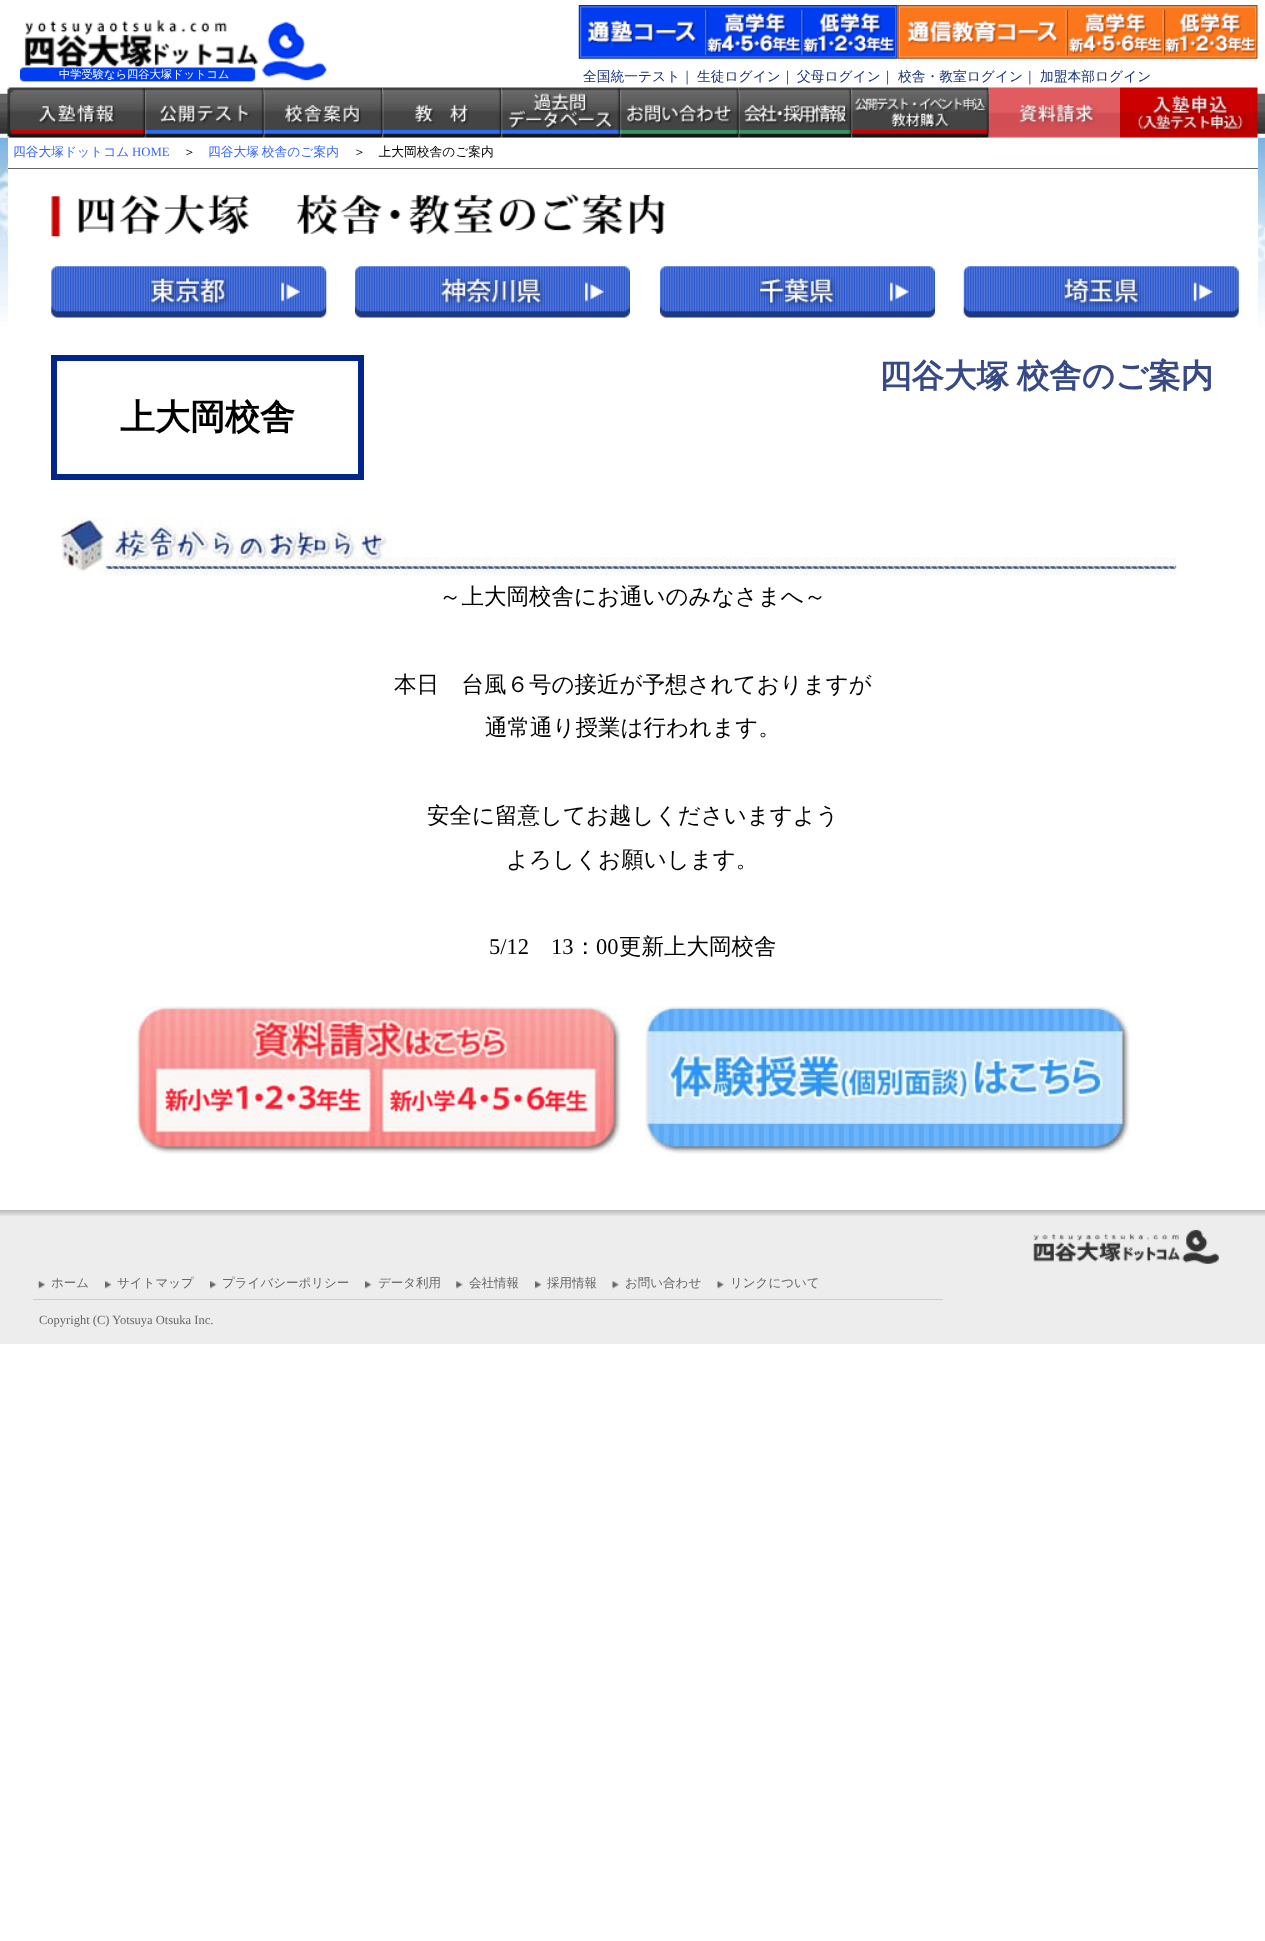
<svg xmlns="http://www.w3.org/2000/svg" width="1265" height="1941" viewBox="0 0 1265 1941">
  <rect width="100%" height="100%" fill="#fff"/>
  <image x="0" y="137" width="1265" height="190" href="img/1.png"/>
  <image x="578" y="5" width="320" height="54" href="img/2.png"/>
  <image x="897" y="5" width="361" height="54" href="img/3.png"/>
  <image x="20" y="19" width="307" height="63" href="img/4.png"/>
  <image x="0" y="93" width="1265" height="45" href="img/5.png"/>
  <image x="7" y="87" width="138" height="51" href="img/6.png"/>
  <image x="145" y="87" width="119" height="51" href="img/7.png"/>
  <image x="263" y="87" width="120" height="51" href="img/8.png"/>
  <image x="382" y="87" width="120" height="51" href="img/9.png"/>
  <image x="501" y="87" width="119" height="51" href="img/10.png"/>
  <image x="620" y="87" width="119" height="51" href="img/11.png"/>
  <image x="738" y="87" width="114" height="51" href="img/12.png"/>
  <image x="851" y="87" width="138" height="51" href="img/13.png"/>
  <image x="988" y="87" width="132" height="51" href="img/14.png"/>
  <image x="1120" y="87" width="138" height="51" href="img/15.png"/>
  <path d="M8 138h1250v189H8z" fill="#fff"/>
  <path d="M8 168h1250v1H8z" fill="#666"/>
  <image x="51" y="193" width="614" height="44" href="img/16.png"/>
  <image x="51" y="266" width="276" height="52" href="img/17.png"/>
  <image x="355" y="266" width="275" height="52" href="img/18.png"/>
  <image x="660" y="266" width="275" height="52" href="img/19.png"/>
  <image x="963" y="266" width="276" height="52" href="img/20.png"/>
  <path d="M54 358h307v119H54z" fill="none" stroke="#00258c" stroke-width="6"/>
  <image x="61" y="517" width="1116" height="58" href="img/21.png"/>
  <image x="136" y="1006" width="485" height="148" href="img/22.png"/>
  <image x="645" y="1006" width="485" height="148" href="img/23.png"/>
  <path d="M0 1216h1265v128H0z" fill="#ededed"/>
  <image x="0" y="1210" width="1265" height="6" href="img/24.png"/>
  <image x="1033" y="1229" width="186" height="35" href="img/25.png"/>
  <path d="M33 1299h910v1H33z" fill="#ccc"/>
  <image x="38" y="1281" width="7" height="8" href="img/26.png"/>
  <image x="105" y="1281" width="7" height="8" href="img/27.png"/>
  <image x="210" y="1281" width="7" height="8" href="img/27.png"/>
  <image x="365" y="1281" width="7" height="8" href="img/27.png"/>
  <image x="456" y="1281" width="7" height="8" href="img/28.png"/>
  <image x="535" y="1281" width="7" height="8" href="img/29.png"/>
  <image x="612" y="1281" width="7" height="8" href="img/30.png"/>
  <image x="717" y="1281" width="7" height="8" href="img/30.png"/>
  <text x="59" y="78" font-family="WenQuanYi Zen Hei" font-size="11.25" font-weight="500" fill="#fff">中学受験なら四谷大塚ドットコム</text>
  <g font-family="WenQuanYi Zen Hei" font-size="13.75" font-weight="500" fill="#18337b">
    <text x="583" y="81">全国統一テスト｜</text>
    <text x="697" y="81">生徒ログイン｜</text>
    <text x="797" y="81">父母ログイン｜</text>
    <text x="898" y="81">校舎・教室ログイン｜</text>
    <text x="1040" y="81">加盟本部ログイン</text>
  </g>
  <text x="13" y="156" font-family="WenQuanYi Zen Hei" font-size="12.75" font-weight="500" fill="#36f">四谷大塚ドットコム</text>
  <text x="132" y="156" font-family="Liberation Serif" font-size="12.75" fill="#36f">HOME</text>
  <text x="183" y="156" font-family="WenQuanYi Zen Hei" font-size="12.75" font-weight="500" fill="#000">＞</text>
  <text x="208" y="156" word-spacing="-1" font-family="WenQuanYi Zen Hei" font-size="12.75" font-weight="500" fill="#36f">四谷大塚 校舎のご案内</text>
  <text x="353" y="156" font-family="WenQuanYi Zen Hei" font-size="12.75" font-weight="500" fill="#000">＞　上大岡校舎のご案内</text>
  <text x="879" y="387" word-spacing="-2" font-family="WenQuanYi Zen Hei" font-size="32.5" font-weight="bold" fill="#374a85">四谷大塚 校舎のご案内</text>
  <text x="120" y="429" font-family="WenQuanYi Zen Hei" font-size="35" font-weight="bold" fill="#000">上大岡校舎</text>
  <g font-family="WenQuanYi Zen Hei" font-size="22.5" font-weight="500" fill="#000">
    <text x="439" y="604">～上大岡校舎にお通いのみなさまへ～</text>
    <text x="394" y="692">本日　台風６号の接近が予想されておりますが</text>
    <text x="485" y="735">通常通り授業は行われます。</text>
    <text x="427" y="823">安全に留意してお越しくださいますよう</text>
    <text x="506" y="867">よろしくお願いします。</text>
  </g>
  <g font-family="Liberation Serif" font-size="22.5" fill="#000">
    <text x="489" y="954">5/12</text>
    <text x="551" y="954">13</text>
  </g>
  <text x="574" y="954" font-family="WenQuanYi Zen Hei" font-size="22.5" font-weight="500" fill="#000">：</text>
  <text x="596" y="954" font-family="Liberation Serif" font-size="22.5" fill="#000">00</text>
  <text x="619" y="954" font-family="WenQuanYi Zen Hei" font-size="22.5" font-weight="500" fill="#000">更新上大岡校舎</text>
  <g font-family="WenQuanYi Zen Hei" font-size="12.5" font-weight="500" fill="#666">
    <text x="51" y="1287">ホーム</text>
    <text x="117" y="1287">サイトマップ</text>
    <text x="222" y="1287">プライバシーポリシー</text>
    <text x="378" y="1287">データ利用</text>
    <text x="469" y="1287">会社情報</text>
    <text x="547" y="1287">採用情報</text>
    <text x="625" y="1287">お問い合わせ</text>
    <text x="730" y="1287">リンクについて</text>
  </g>
  <text x="39" y="1324" font-family="Liberation Serif" font-size="12.5" fill="#666">Copyright (C) Yotsuya Otsuka Inc.</text>
</svg>
